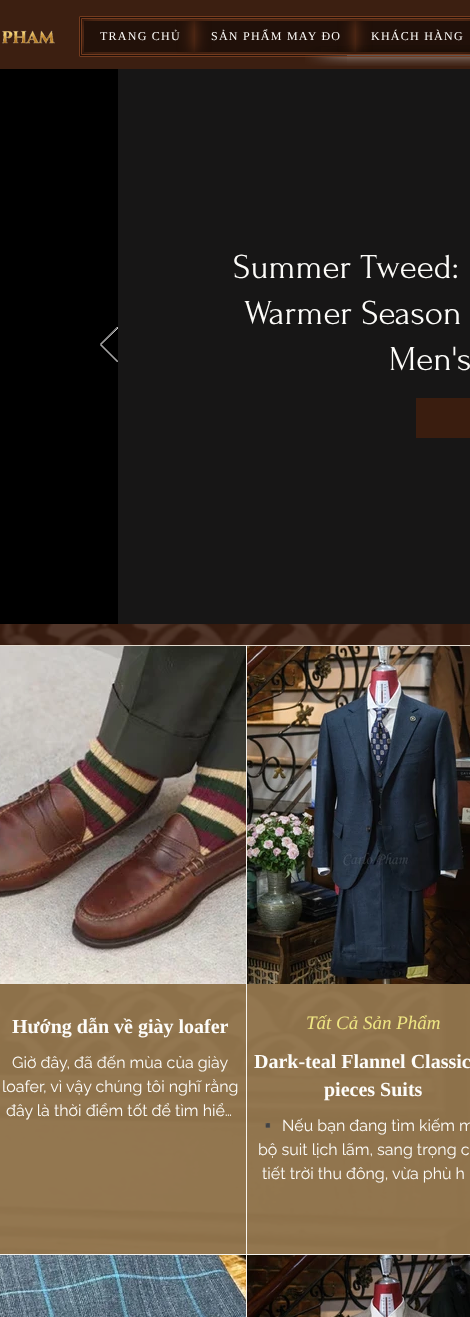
<svg xmlns="http://www.w3.org/2000/svg" width="470" height="1317" viewBox="0 0 470 1317">
  <defs>
    <clipPath id="clip1"><path d="M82 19h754v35H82z"/></clipPath>
    <clipPath id="clip2"><path d="M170 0H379V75H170ZM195 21H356V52H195Z" clip-rule="evenodd"/></clipPath>
    <clipPath id="clip3"><path d="M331 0H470V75H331ZM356 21H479V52H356Z" clip-rule="evenodd"/></clipPath>
    <clipPath id="clip4"><path d="M100 327h18v36H100z"/></clipPath>
  </defs>
  <rect width="100%" height="100%" fill="#3c1f11"/>
  <image x="2" y="30" width="53" height="14" href="img/1.png"/>
  <image x="347" y="45" width="123" height="21" href="img/2.png"/>
  <image x="305" y="46" width="42" height="20" href="img/3.png"/>
  <rect x="79.5" y="16.5" width="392" height="40" rx="0.5" fill="#00000075" stroke="#743b1e"/>
  <path d="M81.5 18.5h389v36H81.5z" fill="none" stroke="#743b1e"/>
  <path d="M0 69h118v555H0z" fill="#000"/>
  <path d="M118 69h352v555H118z" fill="#171616"/>
  <g clip-path="url(#clip1)">
    <path d="M83 20h111v31H83z" fill="#743b1e" filter="blur(7.5px)"/>
  </g>
  <path d="M84 21h111v31H84z" fill="#221109"/>
  <g clip-path="url(#clip1)">
    <g clip-path="url(#clip2)">
      <path d="M194 20h161v31H194z" fill="#743b1e" filter="blur(7.5px)"/>
    </g>
  </g>
  <path d="M321 47h35v5H321z" fill="#3a1d0f17"/>
  <g clip-path="url(#clip1)">
    <g clip-path="url(#clip3)">
      <path d="M355 20h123v31H355z" fill="#743b1e" filter="blur(7.5px)"/>
    </g>
  </g>
  <path d="M364 47h106v5H364z" fill="#3a1d0f17"/>
  <g clip-path="url(#clip1)">
    <path d="M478 20h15v31H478z" fill="#743b1e" filter="blur(7.5px)"/>
  </g>
  <g clip-path="url(#clip4)">
    <path d="M117.5 362L100 344.5L117.5 327L118 328L101 344.5L118 361.5Z" fill="none" stroke="#e8e6e6" stroke-width="0.9"/>
  </g>
  <path d="M416 398h54v40H416z" fill="#3a1d0f"/>
  <image x="0" y="624" width="470" height="693" href="img/8.png"/>
  <path d="M0 645h470v672H0z" fill="#a88b5dc4"/>
  <path d="M-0.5 645.5h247v609H-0.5z" fill="none" stroke="#fdfcf9bf"/>
  <image x="0" y="646" width="246" height="338" href="img/4.png"/>
  <path d="M246.5 645.5h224v609H246.5z" fill="none" stroke="#fdfcf9bf"/>
  <image x="247" y="646" width="223" height="338" href="img/5.png"/>
  <path d="M-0.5 1254.5h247v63H-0.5z" fill="none" stroke="#fdfcf9bf"/>
  <image x="0" y="1255" width="246" height="62" href="img/6.png"/>
  <path d="M246.5 1254.5h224v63H246.5z" fill="none" stroke="#fdfcf9bf"/>
  <image x="247" y="1255" width="223" height="62" href="img/7.png"/>
  <g font-family="Liberation Serif" font-size="12" letter-spacing="1.25" fill="#fdfcf9">
    <text x="100" y="40">TRANG CHỦ</text>
    <text x="211" y="40">SẢN PHẨM MAY ĐO</text>
    <text x="371" y="40">KHÁCH HÀNG</text>
  </g>
  <g font-family="Forum" font-size="35" fill="#fdfcf9">
    <text x="233" y="278">Summer Tweed:</text>
    <text x="244" y="324">Warmer Season</text>
    <text x="389" y="370">Men's</text>
  </g>
  <text x="12" y="1033" font-family="Liberation Serif" font-size="20" font-weight="bold" fill="#fdfcf9">Hướng dẫn về giày loafer</text>
  <g font-family="Raleway" font-size="16" fill="#fdfcf9">
    <text x="12" y="1068">Giờ đây, đã đến mùa của giày</text>
    <text x="2" y="1092">loafer, vì vậy chúng tôi nghĩ rằng</text>
    <text x="6" y="1116">đây là thời điểm tốt để tìm hiể…</text>
  </g>
  <text x="306" y="1029" font-family="Liberation Serif" font-size="19" font-style="italic" fill="#efe683">Tất Cả Sản Phẩm</text>
  <g font-family="Liberation Serif" font-size="20" font-weight="bold" fill="#fdfcf9">
    <text x="254" y="1068">Dark-teal Flannel Classic</text>
    <text x="324" y="1096">pieces Suits</text>
  </g>
  <text x="258" y="1131" font-family="Noto Color Emoji" font-size="16" fill="#fdfcf9">▪️</text>
  <g font-family="Raleway" font-size="16" fill="#fdfcf9">
    <text x="282" y="1131">Nếu bạn đang tìm kiếm m</text>
    <text x="258" y="1155">bộ suit lịch lãm, sang trọng c</text>
    <text x="262" y="1179">tiết trời thu đông, vừa phù h</text>
  </g>
</svg>
